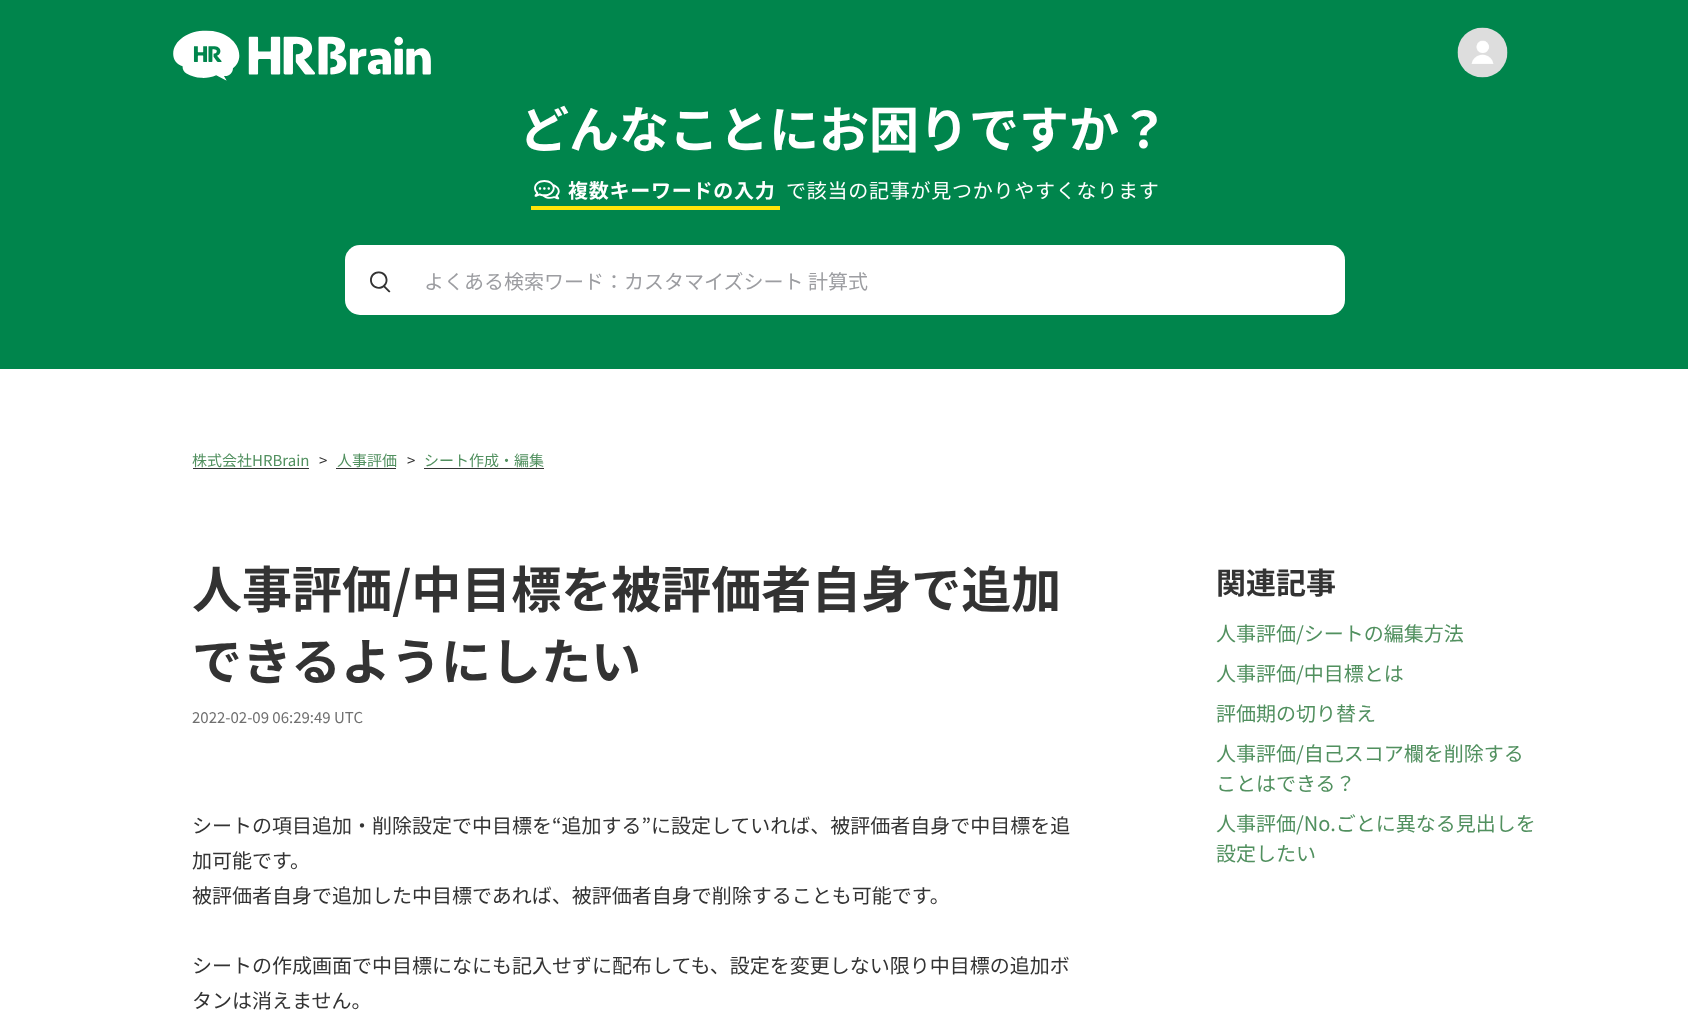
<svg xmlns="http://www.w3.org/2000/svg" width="1688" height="1027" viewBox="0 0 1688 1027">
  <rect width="100%" height="100%" fill="#fff"/>
  <path d="M0 0h1688v369H0z" fill="#00854c"/>
  <image x="173" y="30" width="258" height="51" href="img/1.png"/>
  <image x="1457" y="27" width="51" height="51" href="img/2.png"/>
  <image x="534" y="180" width="26" height="20" href="img/3.png"/>
  <path d="M531 206h249v4H531z" fill="#ffe609"/>
  <rect x="345" y="245" width="1000" height="70" rx="15" fill="#fff"/>
  <image x="370" y="271" width="21" height="22" href="img/4.png"/>
  <path d="M193 468h116v1H193z" fill="#333"/>
  <path d="M336 468h60v1H336z" fill="#333"/>
  <path d="M424 468h120v1H424z" fill="#333"/>
  <text x="519" y="148" font-family="Noto Sans JP" font-size="50" font-weight="bold" fill="#fff">どんなことにお困りですか？</text>
  <text x="568" y="198" font-family="Noto Sans JP" font-size="20" font-weight="bold" letter-spacing="0.75" fill="#fff">複数キーワードの入力</text>
  <text x="786" y="198" font-family="Noto Sans JP" font-size="20" letter-spacing="0.75" fill="#fff">で該当の記事が見つかりやすくなります</text>
  <text x="424" y="289" font-family="Noto Sans JP" font-size="20" fill="#9c9da1">よくある検索ワード：カスタマイズシート 計算式</text>
  <text x="192" y="466" font-family="Noto Sans JP" font-size="15" fill="#51905f">株式会社HRBrain</text>
  <text x="319" y="466" font-family="Noto Sans JP" font-size="15" fill="#333">&gt;</text>
  <text x="337" y="466" font-family="Noto Sans JP" font-size="15" fill="#51905f">人事評価</text>
  <text x="407" y="466" font-family="Noto Sans JP" font-size="15" fill="#333">&gt;</text>
  <text x="424" y="466" font-family="Noto Sans JP" font-size="15" fill="#51905f">シート作成・編集</text>
  <g font-family="Noto Sans JP" font-size="50" font-weight="bold" fill="#333">
    <text x="192" y="608">人事評価/中目標を被評価者自身で追加</text>
    <text x="192" y="680">できるようにしたい</text>
  </g>
  <text x="192" y="723" font-family="Noto Sans JP" font-size="15" fill="#6f6f6f">2022-02-09 06:29:49 UTC</text>
  <g font-family="Noto Sans JP" font-size="20" fill="#333">
    <text x="192" y="833">シートの項目追加・削除設定で中目標を“追加する”に設定していれば、被評価者自身で中目標を追</text>
    <text x="192" y="868">加可能です。</text>
    <text x="192" y="903">被評価者自身で追加した中目標であれば、被評価者自身で削除することも可能です。</text>
    <text x="192" y="973">シートの作成画面で中目標になにも記入せずに配布しても、設定を変更しない限り中目標の追加ボ</text>
    <text x="192" y="1008">タンは消えません。</text>
  </g>
  <text x="1216" y="594" font-family="Noto Sans JP" font-size="30" font-weight="bold" fill="#333">関連記事</text>
  <g font-family="Noto Sans JP" font-size="20" fill="#51905f">
    <text x="1216" y="641">人事評価/シートの編集方法</text>
    <text x="1216" y="681">人事評価/中目標とは</text>
    <text x="1216" y="721">評価期の切り替え</text>
    <text x="1216" y="761">人事評価/自己スコア欄を削除する</text>
    <text x="1216" y="791">ことはできる？</text>
    <text x="1216" y="831">人事評価/No.ごとに異なる見出しを</text>
    <text x="1216" y="861">設定したい</text>
  </g>
</svg>
